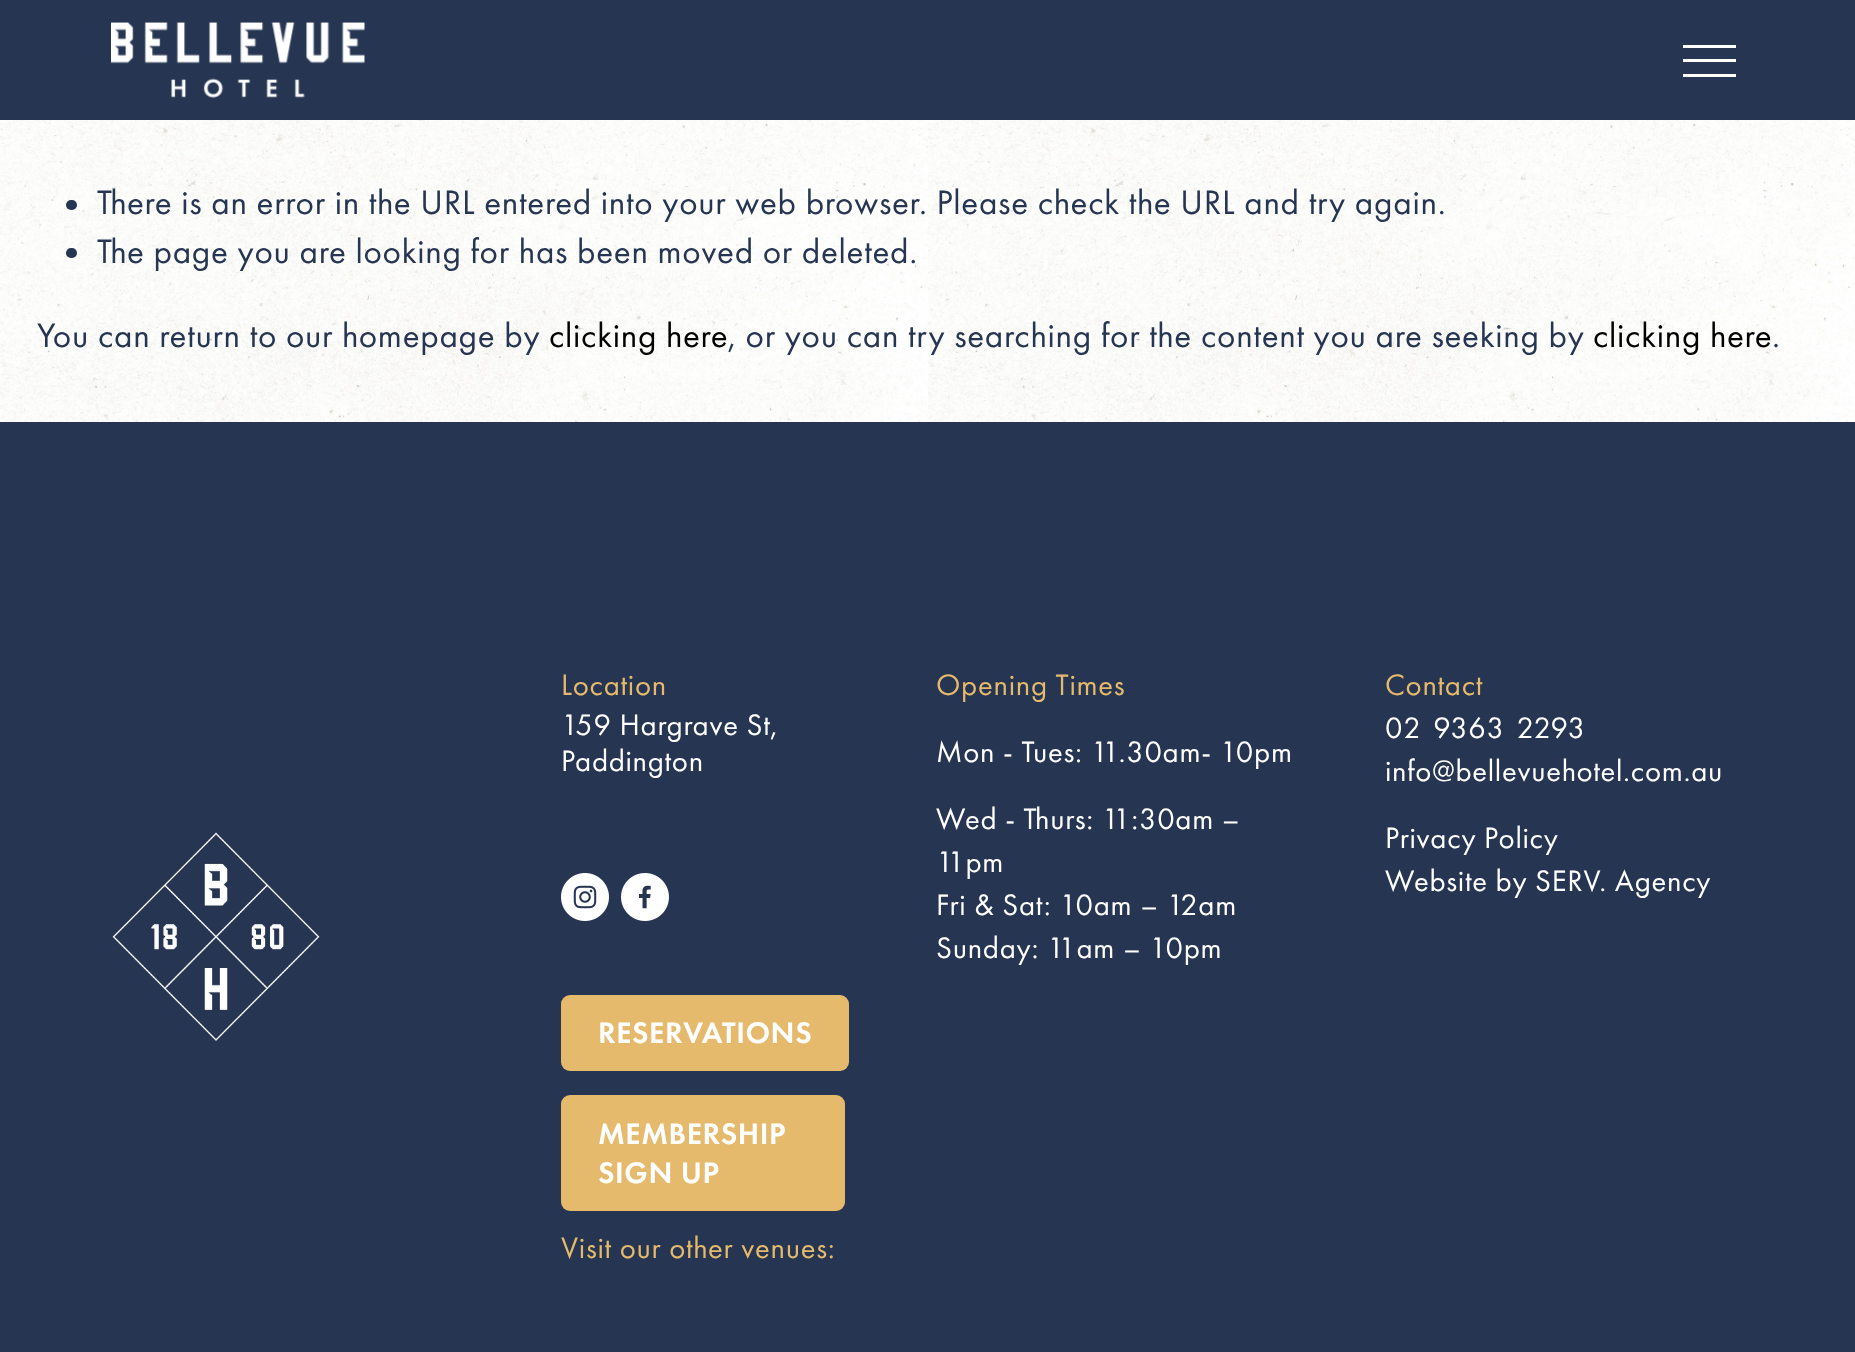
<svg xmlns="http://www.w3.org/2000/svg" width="1855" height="1352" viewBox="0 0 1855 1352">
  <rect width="100%" height="100%" fill="#fff"/>
  <image x="0" y="120" width="1855" height="302" href="img/1.png"/>
  <path d="M0 0h1855v120H0z" fill="#263552"/>
  <image x="111" y="22" width="254" height="76" href="img/2.png"/>
  <path d="M1683 45h53v3H1683z" fill="#fff"/>
  <path d="M1683 59h53v3H1683z" fill="#fff"/>
  <path d="M1683 74h53v3H1683z" fill="#fff"/>
  <rect x="66" y="200" width="11" height="10" rx="5" fill="#263552"/>
  <rect x="66" y="248" width="11" height="10" rx="5" fill="#263552"/>
  <path d="M0 422h1855v930H0z" fill="#263552"/>
  <image x="112" y="832" width="208" height="209" href="img/3.png"/>
  <image x="561" y="873" width="48" height="48" href="img/4.png"/>
  <image x="621" y="873" width="48" height="48" href="img/5.png"/>
  <rect x="561" y="995" width="288" height="76" rx="9" fill="#e6ba6c"/>
  <rect x="561" y="1095" width="284" height="116" rx="9" fill="#e6ba6c"/>
  <g font-family="Futura PT" font-size="35.15" letter-spacing="0.7" fill="#263552">
    <text x="97" y="214">There is an error in the URL entered into your web browser. Please check the URL and try again.</text>
    <text x="97" y="263">The page you are looking for has been moved or deleted.</text>
    <text x="37" y="347">You can return to our homepage by</text>
  </g>
  <text x="549" y="347" font-family="Futura PT" font-size="35.15" letter-spacing="0.7" fill="#000">clicking here</text>
  <g font-family="Futura PT" font-size="35.15" letter-spacing="0.7" fill="#263552">
    <text x="728" y="347">, or you can try searching for the</text>
    <text x="1201" y="347">content you are seeking by</text>
  </g>
  <text x="1593" y="347" font-family="Futura PT" font-size="35.15" letter-spacing="0.7" fill="#000">clicking here</text>
  <text x="1772" y="347" font-family="Futura PT" font-size="35.15" letter-spacing="0.7" fill="#263552">.</text>
  <text x="561" y="695" font-family="Futura PT" font-size="30.75" letter-spacing="0.7" fill="#e6ba6c">Location</text>
  <g font-family="Futura PT" font-size="30.75" letter-spacing="0.7" fill="#fff">
    <text x="561" y="735">159 Hargrave St,</text>
    <text x="561" y="771">Paddington</text>
  </g>
  <text x="936" y="695" font-family="Futura PT" font-size="30.75" letter-spacing="0.7" fill="#e6ba6c">Opening Times</text>
  <g font-family="Futura PT" font-size="30.75" letter-spacing="0.7" fill="#fff">
    <text x="936" y="762">Mon - Tues: 11.30am- 10pm</text>
    <text x="936" y="829">Wed - Thurs: 11:30am –</text>
    <text x="936" y="872">11pm</text>
    <text x="936" y="915">Fri &amp; Sat: 10am – 12am</text>
    <text x="936" y="958">Sunday: 11am – 10pm</text>
  </g>
  <text x="1385" y="695" font-family="Futura PT" font-size="30.75" letter-spacing="0.7" fill="#e6ba6c">Contact</text>
  <g font-family="Futura PT" font-size="30.75" letter-spacing="0.7" fill="#fff">
    <text x="1385" y="738" word-spacing="4">02 9363 2293</text>
    <text x="1385" y="781">info@bellevuehotel.com.au</text>
    <text x="1385" y="848">Privacy Policy</text>
    <text x="1385" y="891">Website by SERV. Agency</text>
  </g>
  <g font-family="Futura PT" font-size="30.75" font-weight="500" letter-spacing="0.6" fill="#fff">
    <text x="598" y="1043">RESERVATIONS</text>
    <text x="598" y="1144">MEMBERSHIP</text>
    <text x="598" y="1183">SIGN UP</text>
  </g>
  <text x="561" y="1258" font-family="Futura PT" font-size="30.75" letter-spacing="0.7" fill="#e6ba6c">Visit our other venues:</text>
</svg>
